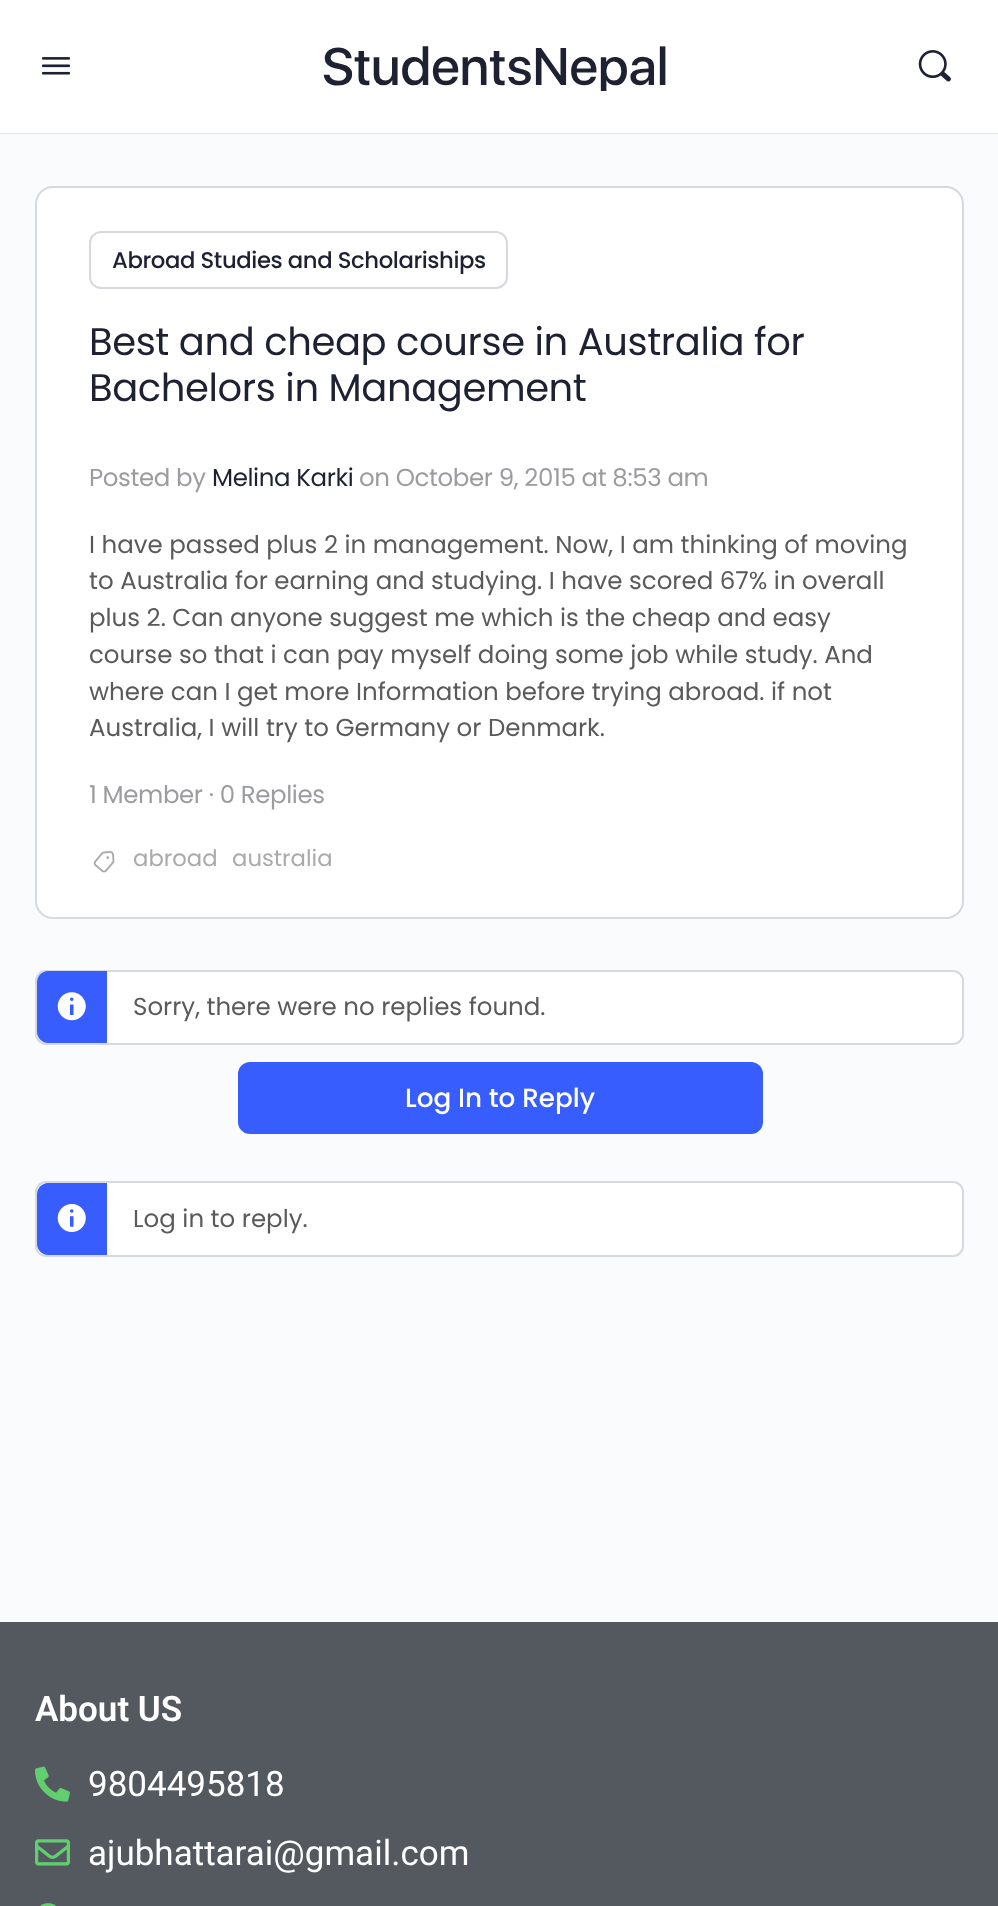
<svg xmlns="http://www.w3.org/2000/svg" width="998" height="1906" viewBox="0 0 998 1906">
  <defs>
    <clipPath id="clip1"><path d="M77 44h837v47H77z"/></clipPath>
  </defs>
  <rect width="100%" height="100%" fill="#fafbfd"/>
  <path d="M0 0h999v133H0z" fill="#41476c26" filter="blur(1px)"/>
  <path d="M0 133h998v2H0z" fill="#8b8d9d0d"/>
  <path d="M0 0h998v133H0z" fill="#fff"/>
  <image x="42" y="57" width="28" height="18" href="img/1.png"/>
  <image x="918" y="50" width="33" height="32" href="img/2.png"/>
  <rect x="36" y="187" width="927" height="731" rx="17" fill="#fff" stroke="#d6d9dd" stroke-width="2"/>
  <rect x="90" y="232" width="417" height="56" rx="11" fill="none" stroke="#d6d9dd" stroke-width="2"/>
  <image x="93" y="851" width="22" height="22" href="img/3.png"/>
  <rect x="36" y="971" width="927" height="73" rx="10" fill="#fff" stroke="#d6d9dd" stroke-width="2"/>
  <path d="M48 971H107V1043H48C42 1043 37 1038 37 1032V982C37 976 42 971 48 971Z" fill="#385dff"/>
  <image x="57" y="992" width="29" height="29" href="img/4.png"/>
  <rect x="239" y="1063" width="523" height="70" rx="11" fill="#385dff" stroke="#385dff" stroke-width="2"/>
  <rect x="36" y="1182" width="927" height="74" rx="10" fill="#fff" stroke="#d6d9dd" stroke-width="2"/>
  <path d="M48 1183H107V1255H48C42 1255 37 1250 37 1244V1194C37 1188 42 1183 48 1183Z" fill="#385dff"/>
  <image x="57" y="1204" width="29" height="28" href="img/5.png"/>
  <path d="M0 1622h998v284H0z" fill="#54595f"/>
  <image x="35" y="1766" width="35" height="36" href="img/6.png"/>
  <image x="35" y="1839" width="35" height="27" href="img/7.png"/>
  <image x="40" y="1903" width="16" height="3" href="img/8.png"/>
  <g clip-path="url(#clip1)">
    <text x="322" y="85" font-family="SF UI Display" font-size="52.5" font-weight="500" fill="#1e2132">StudentsNepal</text>
  </g>
  <text x="112" y="268" font-family="Poppins" font-size="22.75" font-weight="500" letter-spacing="-0.4" fill="#1e2132">Abroad Studies and Scholariships</text>
  <g font-family="Poppins" font-size="38.5" letter-spacing="-0.4" fill="#1e2132">
    <text x="89" y="355">Best and cheap course in Australia for</text>
    <text x="89" y="401">Bachelors in Management</text>
  </g>
  <text x="89" y="486" font-family="Poppins" font-size="24.5" letter-spacing="-0.4" fill="#9b9c9f">Posted by</text>
  <text x="212" y="486" font-family="Poppins" font-size="24.5" letter-spacing="-0.4" fill="#1e2132">Melina Karki</text>
  <text x="359" y="486" font-family="Poppins" font-size="24.5" letter-spacing="-0.4" fill="#9b9c9f">on October 9, 2015 at 8:53 am</text>
  <g font-family="Poppins" font-size="24.5" fill="#5a5a5a">
    <text x="89" y="553">I have passed plus 2 in management. Now, I am thinking of moving</text>
    <text x="89" y="589">to Australia for earning and studying. I have scored 67% in overall</text>
    <text x="89" y="626">plus 2. Can anyone suggest me which is the cheap and easy</text>
    <text x="89" y="663">course so that i can pay myself doing some job while study. And</text>
    <text x="89" y="700">where can I get more Information before trying abroad. if not</text>
    <text x="89" y="736">Australia, I will try to Germany or Denmark.</text>
  </g>
  <text x="89" y="803" font-family="Poppins" font-size="24.5" letter-spacing="-0.4" fill="#9b9c9f">1 Member · 0 Replies</text>
  <g font-family="Poppins" font-size="22.75" fill="#aaa">
    <text x="133" y="866">abroad</text>
    <text x="232" y="866">australia</text>
  </g>
  <text x="133" y="1015" font-family="Poppins" font-size="24.5" fill="#5a5a5a">Sorry, there were no replies found.</text>
  <text x="405" y="1107" font-family="Poppins" font-size="26.25" font-weight="500" fill="#fff">Log In to Reply</text>
  <text x="133" y="1227" font-family="Poppins" font-size="24.5" fill="#5a5a5a">Log in to reply.</text>
  <text x="35" y="1721" font-family="Roboto" font-size="35" font-weight="600" fill="#fff">About US</text>
  <g font-family="Roboto" font-size="35" fill="#fff">
    <text x="88" y="1796">9804495818</text>
    <text x="88" y="1865">ajubhattarai@gmail.com</text>
  </g>
</svg>
